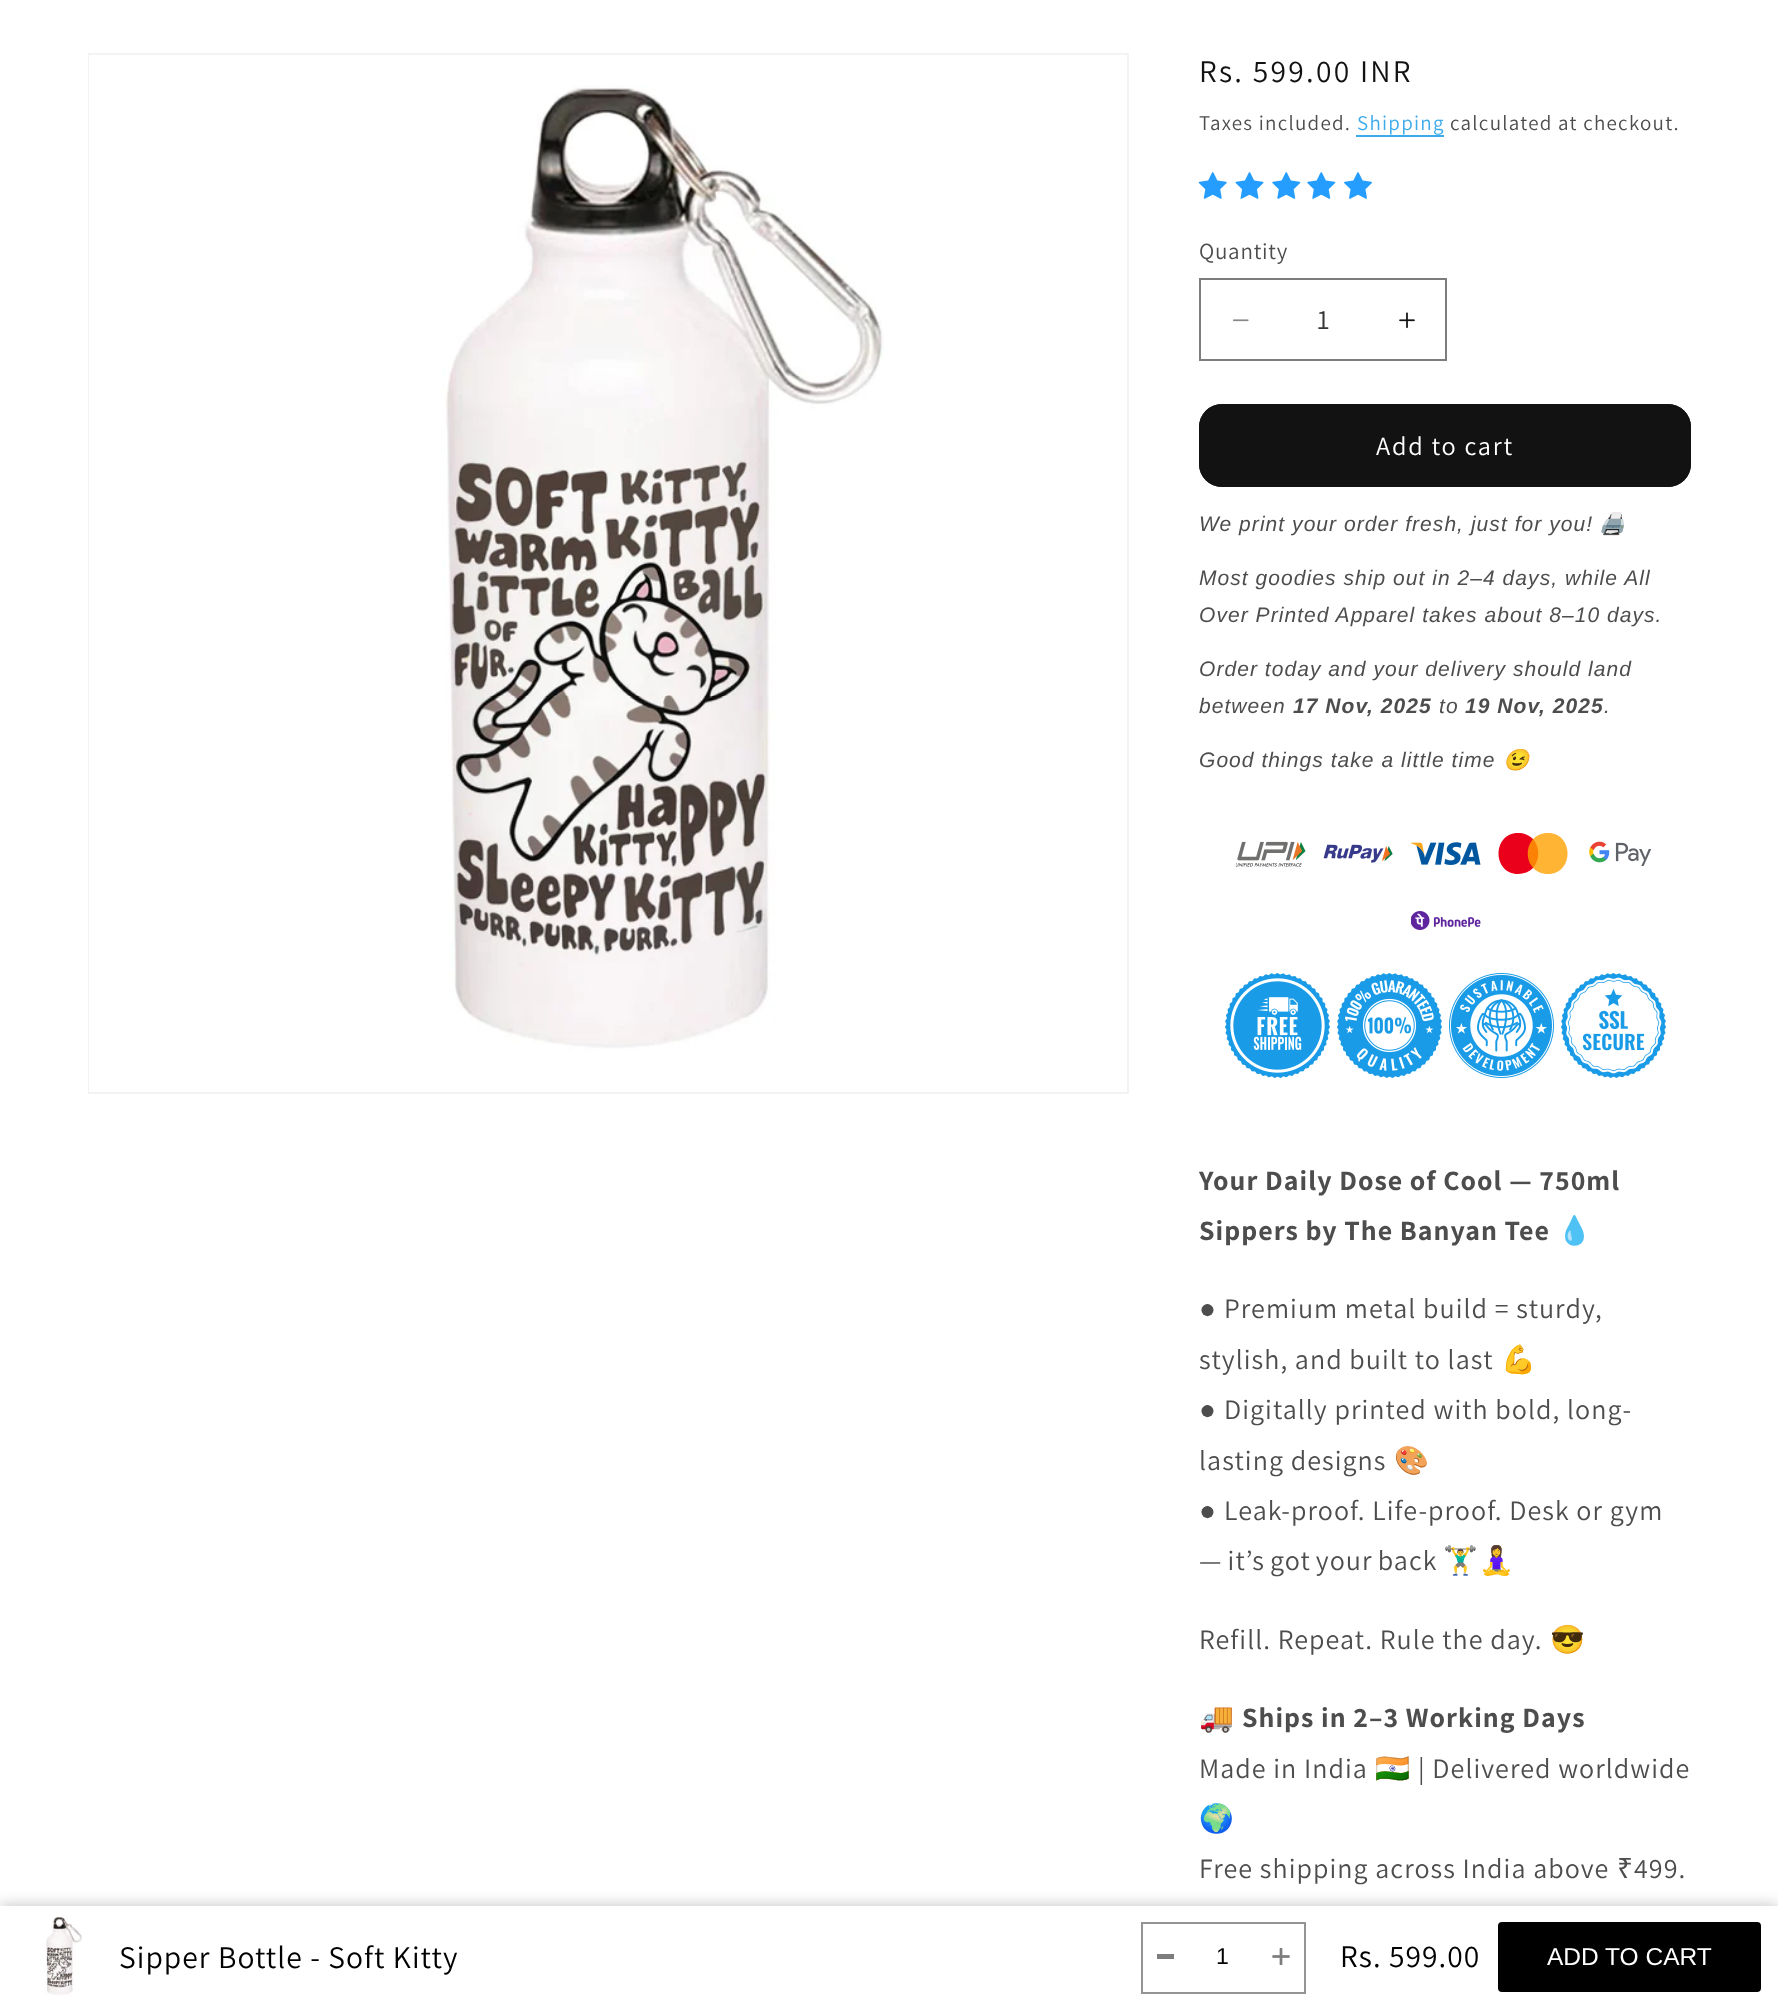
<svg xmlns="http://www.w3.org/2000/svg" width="1778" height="2007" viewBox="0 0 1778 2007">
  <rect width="100%" height="100%" fill="#fff"/>
  <path d="M89 54h1039v1039H89z" fill="none" stroke="#f3f3f3" stroke-width="2"/>
  <image x="89" y="55" width="795" height="1037" href="img/1.png"/>
  <path d="M1356 135h88v2H1356z" fill="#3caaeb"/>
  <image x="1198" y="172" width="29" height="27" href="img/2.png"/>
  <image x="1235" y="172" width="29" height="27" href="img/3.png"/>
  <image x="1272" y="172" width="29" height="27" href="img/4.png"/>
  <image x="1307" y="172" width="29" height="27" href="img/4.png"/>
  <image x="1344" y="172" width="28" height="27" href="img/5.png"/>
  <image x="1233" y="319" width="16" height="3" href="img/6.png"/>
  <image x="1399" y="312" width="16" height="17" href="img/7.png"/>
  <path d="M1200 279h246v81H1200z" fill="none" stroke="#7d7d7d" stroke-width="2"/>
  <rect x="1199" y="404" width="492" height="83" rx="23" fill="#121212"/>
  <rect x="1200" y="405" width="490" height="81" rx="22" fill="none" stroke="#121212" stroke-width="2"/>
  <image x="1236" y="841" width="70" height="26" href="img/8.png"/>
  <image x="1323" y="844" width="70" height="19" href="img/9.png"/>
  <image x="1411" y="842" width="70" height="23" href="img/10.png"/>
  <path d="M1518 874C1545 874 1545 833 1518 833C1492 833 1492 874 1518 874Z" fill="#ea001b"/>
  <path d="M1548 874C1574 874 1574 833 1548 833C1521 833 1521 874 1548 874Z" fill="#ffa200cc"/>
  <image x="1589" y="841" width="63" height="25" href="img/11.png"/>
  <image x="1411" y="911" width="70" height="19" href="img/12.png"/>
  <image x="1225" y="973" width="105" height="105" href="img/13.png"/>
  <image x="1337" y="973" width="105" height="105" href="img/14.png"/>
  <image x="1449" y="973" width="105" height="105" href="img/15.png"/>
  <image x="1561" y="973" width="105" height="105" href="img/16.png"/>
  <path d="M0 1904h1778v102H0z" fill="#00000033" filter="blur(7px)"/>
  <path d="M0 1906h1778v101H0z" fill="#fff"/>
  <image x="44" y="1915" width="38" height="80" href="img/17.png"/>
  <path d="M1141 1922h165v2H1141z" fill="#949494"/>
  <path d="M1141 1992h117v2H1141z" fill="#949494"/>
  <path d="M1141 1922h2v71H1141z" fill="#949494"/>
  <path d="M1157 1954h17v5H1157z" fill="#7d7d7d"/>
  <path d="M1304 1922h2v71H1304z" fill="#949494"/>
  <path d="M1258 1992h48v2H1258z" fill="#949494"/>
  <image x="1272" y="1948" width="18" height="17" href="img/18.png"/>
  <rect x="1498" y="1922" width="263" height="70" rx="4" fill="#000"/>
  <text x="1199" y="82" font-family="Assistant" font-size="31.5" letter-spacing="2.25" fill="#121212">Rs. 599.00 INR</text>
  <text x="1199" y="130" font-family="Assistant" font-size="21" letter-spacing="1.25" fill="#4d4d4d">Taxes included.</text>
  <text x="1357" y="130" font-family="Assistant" font-size="21" letter-spacing="1.25" fill="#3caaeb">Shipping</text>
  <text x="1450" y="130" font-family="Assistant" font-size="21" letter-spacing="1.25" fill="#4d4d4d">calculated at checkout.</text>
  <text x="1199" y="259" font-family="Assistant" font-size="23" letter-spacing="0.75" fill="#4d4d4d">Quantity</text>
  <text x="1317" y="329" font-family="Assistant" font-size="28" fill="#363636">1</text>
  <text x="1376" y="455" font-family="Assistant" font-size="26.25" letter-spacing="1.75" fill="#fff">Add to cart</text>
  <text x="1199" y="531" font-family="Liberation Sans" font-size="21" font-style="italic" letter-spacing="1.05" fill="#4d4d4d">We print your order fresh, just for you!</text>
  <text x="1599" y="531" font-family="Noto Color Emoji" font-size="21" font-style="italic" letter-spacing="1.05" fill="#4d4d4d">🖨️</text>
  <g font-family="Liberation Sans" font-size="21" font-style="italic" letter-spacing="1.05" fill="#4d4d4d">
    <text x="1199" y="585">Most goodies ship out in 2–4 days, while All</text>
    <text x="1199" y="622">Over Printed Apparel takes about 8–10 days.</text>
    <text x="1199" y="676">Order today and your delivery should land</text>
    <text x="1199" y="713">between</text>
  </g>
  <text x="1293" y="713" font-family="Liberation Sans" font-size="21" font-weight="bold" font-style="italic" letter-spacing="1.05" fill="#4d4d4d">17 Nov, 2025</text>
  <text x="1439" y="713" font-family="Liberation Sans" font-size="21" font-style="italic" letter-spacing="1.05" fill="#4d4d4d">to</text>
  <text x="1465" y="713" font-family="Liberation Sans" font-size="21" font-weight="bold" font-style="italic" letter-spacing="1.05" fill="#4d4d4d">19 Nov, 2025</text>
  <g font-family="Liberation Sans" font-size="21" font-style="italic" letter-spacing="1.05" fill="#4d4d4d">
    <text x="1604" y="713">.</text>
    <text x="1199" y="767">Good things take a little time</text>
  </g>
  <text x="1503" y="767" font-family="Noto Color Emoji" font-size="21" font-style="italic" letter-spacing="1.05" fill="#4d4d4d">😉</text>
  <g font-family="Assistant" font-size="28" font-weight="bold" letter-spacing="1.05" fill="#4d4d4d">
    <text x="1199" y="1190">Your Daily Dose of Cool — 750ml</text>
    <text x="1199" y="1240">Sippers by The Banyan Tee</text>
  </g>
  <text x="1557" y="1240" font-family="Noto Color Emoji" font-size="28" font-weight="bold" letter-spacing="1.05" fill="#4d4d4d">💧</text>
  <text x="1199" y="1318" font-family="Liberation Sans" font-size="28" letter-spacing="1.05" fill="#4d4d4d">●</text>
  <g font-family="Assistant" font-size="28" letter-spacing="1.05" fill="#4d4d4d">
    <text x="1224" y="1318">Premium metal build = sturdy,</text>
    <text x="1199" y="1369">stylish, and built to last</text>
  </g>
  <text x="1501" y="1369" font-family="Noto Color Emoji" font-size="28" letter-spacing="1.05" fill="#4d4d4d">💪</text>
  <text x="1199" y="1419" font-family="Liberation Sans" font-size="28" letter-spacing="1.05" fill="#4d4d4d">●</text>
  <g font-family="Assistant" font-size="28" letter-spacing="1.05" fill="#4d4d4d">
    <text x="1224" y="1419">Digitally printed with bold, long-</text>
    <text x="1199" y="1470">lasting designs</text>
  </g>
  <text x="1394" y="1470" font-family="Noto Color Emoji" font-size="28" letter-spacing="1.05" fill="#4d4d4d">🎨</text>
  <text x="1199" y="1520" font-family="Liberation Sans" font-size="28" letter-spacing="1.05" fill="#4d4d4d">●</text>
  <g font-family="Assistant" font-size="28" letter-spacing="1.05" fill="#4d4d4d">
    <text x="1224" y="1520">Leak-proof. Life-proof. Desk or gym</text>
    <text x="1199" y="1570" word-spacing="-1.5">— it’s got your back</text>
  </g>
  <text x="1443" y="1570" font-family="Noto Color Emoji" font-size="28" letter-spacing="1.05" fill="#4d4d4d">🏋️‍♂️🧘‍♀️</text>
  <text x="1199" y="1649" font-family="Assistant" font-size="28" letter-spacing="1.05" fill="#4d4d4d">Refill. Repeat. Rule the day.</text>
  <text x="1550" y="1649" font-family="Noto Color Emoji" font-size="28" letter-spacing="1.05" fill="#4d4d4d">😎</text>
  <text x="1199" y="1727" font-family="Noto Color Emoji" font-size="28" font-weight="bold" letter-spacing="1.05" fill="#4d4d4d">🚚</text>
  <text x="1242" y="1727" font-family="Assistant" font-size="28" font-weight="bold" letter-spacing="1.05" fill="#4d4d4d">Ships in 2–3 Working Days</text>
  <text x="1199" y="1778" font-family="Assistant" font-size="28" letter-spacing="1.05" fill="#4d4d4d">Made in India</text>
  <text x="1375" y="1778" font-family="Noto Color Emoji" font-size="28" letter-spacing="1.05" fill="#4d4d4d">🇮🇳</text>
  <text x="1418" y="1778" font-family="Assistant" font-size="28" letter-spacing="1.05" fill="#4d4d4d">| Delivered worldwide</text>
  <text x="1199" y="1828" font-family="Noto Color Emoji" font-size="28" letter-spacing="1.05" fill="#4d4d4d">🌍</text>
  <text x="1199" y="1878" font-family="Assistant" font-size="28" letter-spacing="1.05" fill="#4d4d4d">Free shipping across India above</text>
  <text x="1617" y="1878" font-family="Noto Sans" font-size="28" letter-spacing="1.05" fill="#4d4d4d">₹</text>
  <text x="1634" y="1878" font-family="Assistant" font-size="28" letter-spacing="1.05" fill="#4d4d4d">499.</text>
  <text x="119" y="1968" font-family="Assistant" font-size="31.5" letter-spacing="1.05" fill="#000">Sipper Bottle - Soft Kitty</text>
  <text x="1216" y="1964" font-family="Liberation Sans" font-size="23" fill="#000">1</text>
  <text x="1340" y="1967" font-family="Assistant" font-size="31.5" letter-spacing="1.05" fill="#000">Rs. 599.00</text>
  <text x="1547" y="1965" font-family="Liberation Sans" font-size="24.5" fill="#fff">ADD TO CART</text>
</svg>
